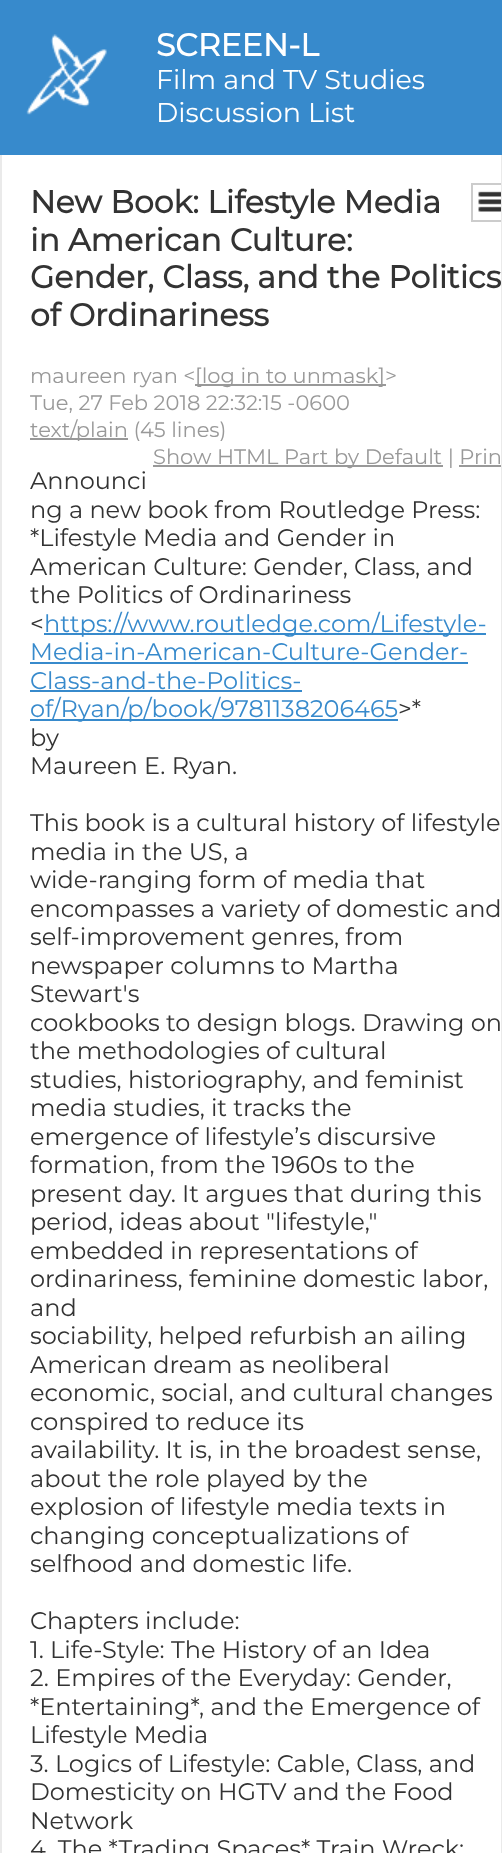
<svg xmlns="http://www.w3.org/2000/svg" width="502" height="1853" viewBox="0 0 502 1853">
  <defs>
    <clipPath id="clip1"><path d="M8 161h493v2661H8z"/></clipPath>
  </defs>
  <rect width="100%" height="100%" fill="#378acc"/>
  <image x="26" y="34" width="81" height="81" href="img/1.png"/>
  <path d="M2 155h499v1698H2z" fill="#fff"/>
  <path d="M501 155h1v1698H501z" fill="#eaeaea"/>
  <path d="M0 155h2v1698H0z" fill="#eaeaea"/>
  <g clip-path="url(#clip1)">
    <path d="M472 184h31v37H472z" fill="none" stroke="#ccc" stroke-width="2"/>
  </g>
  <image x="478" y="191" width="23" height="21" href="img/2.png"/>
  <path d="M195 384h191v2H195z" fill="#999"/>
  <path d="M30 438h98v2H30z" fill="#999"/>
  <path d="M153 465h290v2H153z" fill="#999"/>
  <path d="M459 465h42v2H459z" fill="#999"/>
  <path d="M44 633h442v2H44z" fill="#378acc"/>
  <path d="M30 662h438v2H30z" fill="#378acc"/>
  <path d="M30 690h272v2H30z" fill="#378acc"/>
  <path d="M30 719h368v2H30z" fill="#378acc"/>
  <text x="156" y="56" font-family="Montserrat" font-size="31.5" font-weight="bold" fill="#fff">SCREEN-L</text>
  <g font-family="Montserrat" font-size="27" font-weight="100" fill="#fff">
    <text x="156" y="89">Film and TV Studies</text>
    <text x="156" y="122">Discussion List</text>
  </g>
  <g font-family="Montserrat" font-size="31.5" font-weight="bold" fill="#333">
    <text x="30" y="213">New Book: Lifestyle Media</text>
    <text x="30" y="251">in American Culture:</text>
    <text x="30" y="288">Gender, Class, and the Politics</text>
    <text x="30" y="326">of Ordinariness</text>
  </g>
  <g font-family="Montserrat" font-size="21" font-weight="100" fill="#999">
    <text x="30" y="383">maureen ryan &lt;</text>
    <text x="195" y="383">[log in to unmask]&gt;</text>
    <text x="30" y="410">Tue, 27 Feb 2018 22:32:15 -0600</text>
    <text x="30" y="437">text/plain (45 lines)</text>
    <text x="153" y="464">Show HTML Part by Default | Prin</text>
  </g>
  <g font-family="Montserrat" font-size="24" font-weight="100" fill="#333">
    <text x="30" y="489">Announci</text>
    <text x="30" y="518">ng a new book from Routledge Press:</text>
    <text x="30" y="546">*Lifestyle Media and Gender in</text>
    <text x="30" y="575">American Culture: Gender, Class, and</text>
    <text x="30" y="603">the Politics of Ordinariness</text>
    <text x="30" y="632">&lt;</text>
  </g>
  <g font-family="Montserrat" font-size="24" font-weight="100" fill="#378acc">
    <text x="44" y="632">https://www.routledge.com/Lifestyle-</text>
    <text x="30" y="660">Media-in-American-Culture-Gender-</text>
    <text x="30" y="689">Class-and-the-Politics-</text>
    <text x="30" y="717">of/Ryan/p/book/9781138206465</text>
  </g>
  <g font-family="Montserrat" font-size="24" font-weight="100" fill="#333">
    <text x="398" y="717">&gt;*</text>
    <text x="30" y="746">by</text>
    <text x="30" y="774">Maureen E. Ryan.</text>
    <text x="30" y="831">This book is a cultural history of lifestyle</text>
    <text x="30" y="860">media in the US, a</text>
    <text x="30" y="888">wide-ranging form of media that</text>
    <text x="30" y="917">encompasses a variety of domestic and</text>
    <text x="30" y="945">self-improvement genres, from</text>
    <text x="30" y="974">newspaper columns to Martha</text>
    <text x="30" y="1002">Stewart's</text>
    <text x="30" y="1031">cookbooks to design blogs. Drawing on</text>
    <text x="30" y="1059">the methodologies of cultural</text>
    <text x="30" y="1088">studies, historiography, and feminist</text>
    <text x="30" y="1116">media studies, it tracks the</text>
    <text x="30" y="1145">emergence of lifestyle’s discursive</text>
    <text x="30" y="1173">formation, from the 1960s to the</text>
    <text x="30" y="1202">present day. It argues that during this</text>
    <text x="30" y="1230">period, ideas about "lifestyle,"</text>
    <text x="30" y="1259">embedded in representations of</text>
    <text x="30" y="1287">ordinariness, feminine domestic labor,</text>
    <text x="30" y="1316">and</text>
    <text x="30" y="1344">sociability, helped refurbish an ailing</text>
    <text x="30" y="1373">American dream as neoliberal</text>
    <text x="30" y="1401">economic, social, and cultural changes</text>
    <text x="30" y="1430">conspired to reduce its</text>
    <text x="30" y="1458">availability. It is, in the broadest sense,</text>
    <text x="30" y="1487">about the role played by the</text>
    <text x="30" y="1515">explosion of lifestyle media texts in</text>
    <text x="30" y="1544">changing conceptualizations of</text>
    <text x="30" y="1572">selfhood and domestic life.</text>
    <text x="30" y="1629">Chapters include:</text>
    <text x="30" y="1658">1. Life-Style: The History of an Idea</text>
    <text x="30" y="1686">2. Empires of the Everyday: Gender,</text>
    <text x="30" y="1715">*Entertaining*, and the Emergence of</text>
    <text x="30" y="1743">Lifestyle Media</text>
    <text x="30" y="1772">3. Logics of Lifestyle: Cable, Class, and</text>
    <text x="30" y="1800">Domesticity on HGTV and the Food</text>
    <text x="30" y="1829">Network</text>
    <text x="30" y="1857">4. The *Trading Spaces* Train Wreck:</text>
  </g>
</svg>
